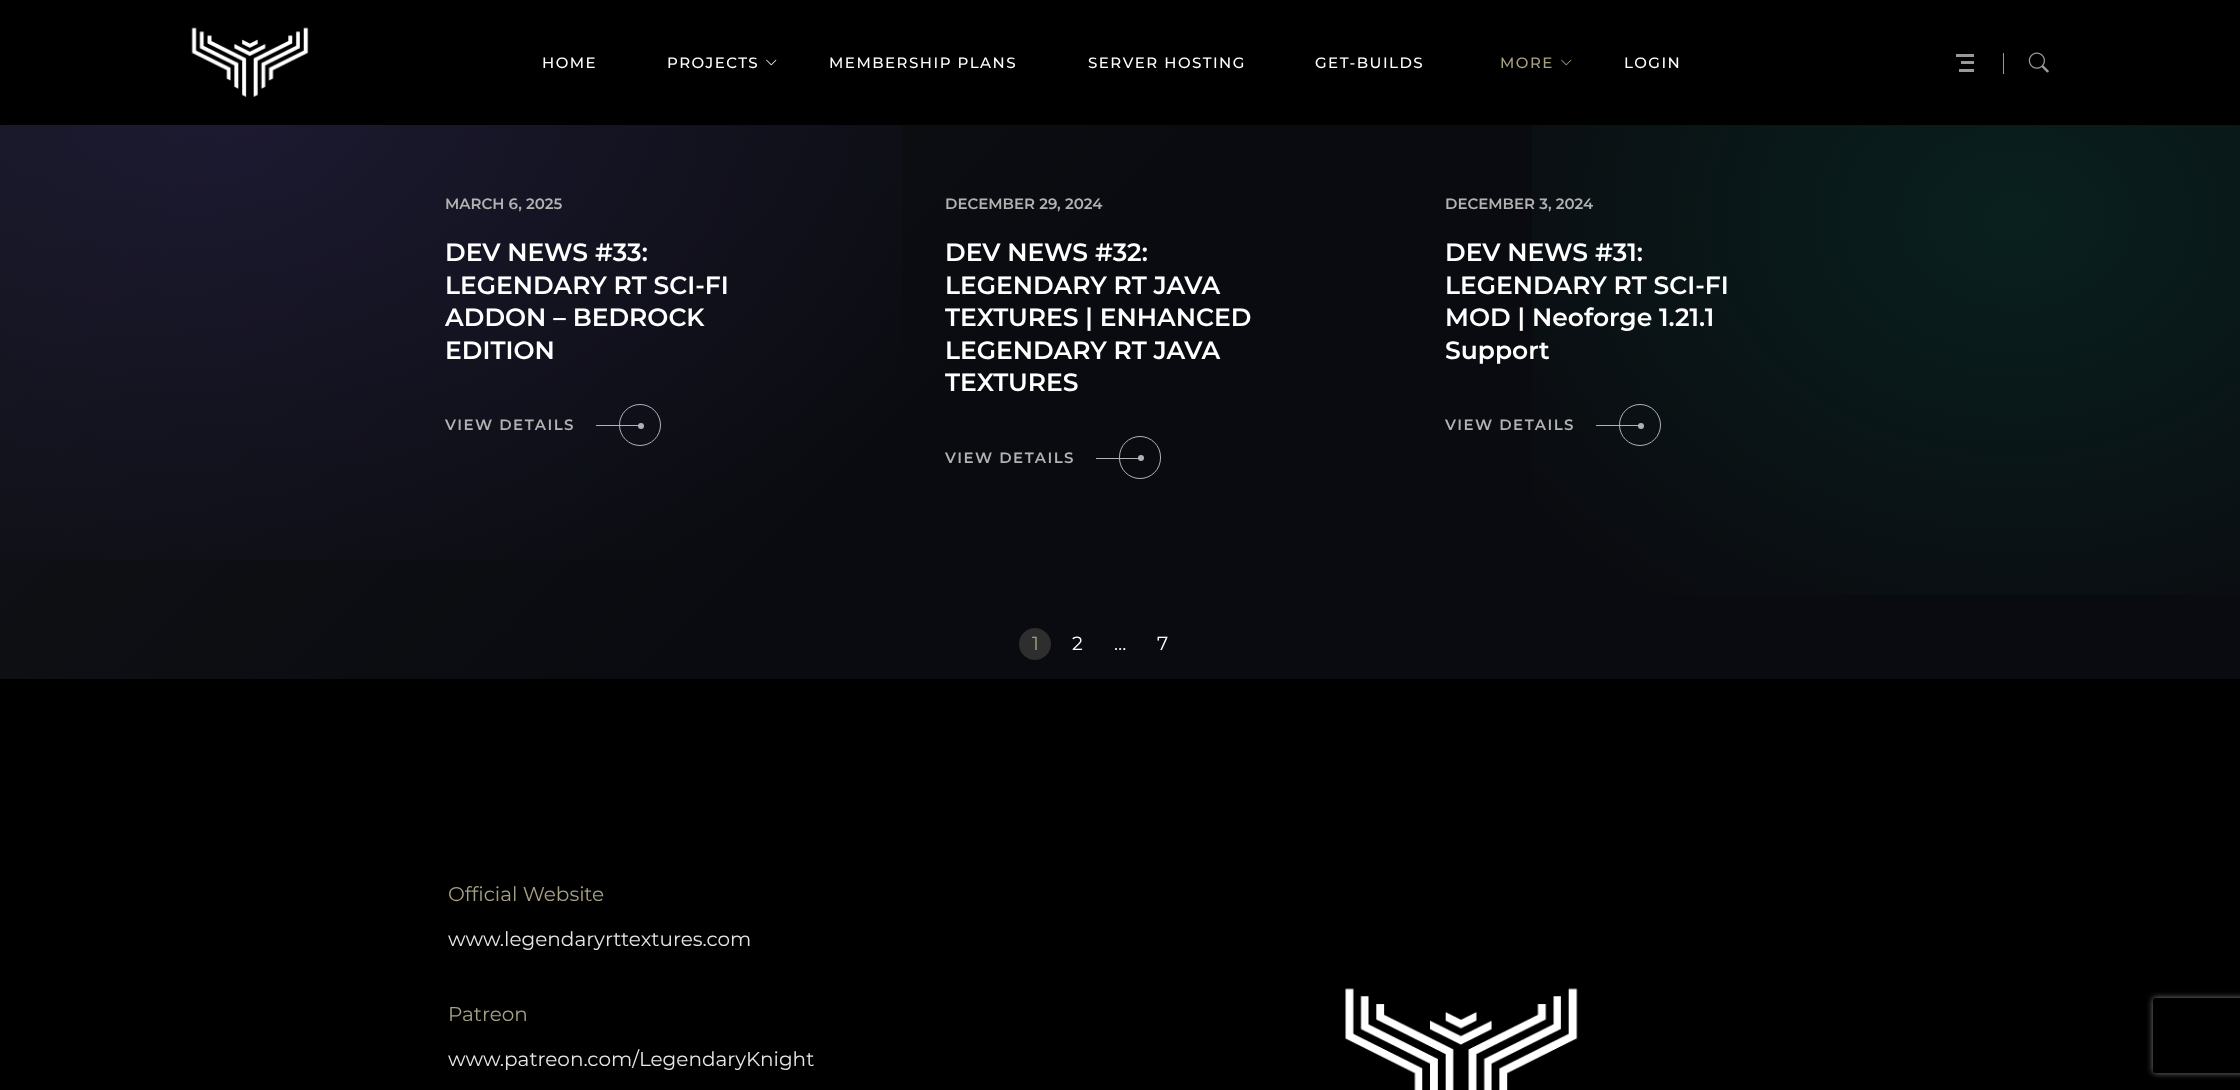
<svg xmlns="http://www.w3.org/2000/svg" width="2240" height="1090" viewBox="0 0 2240 1090">
  <defs>
    <linearGradient id="g1" gradientUnits="userSpaceOnUse" x1="288" y1="-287" x2="1953" y2="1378"><stop offset="0" stop-color="#111317"/><stop offset="0.42" stop-color="#0a0b10"/></linearGradient>
    <radialGradient id="g2" gradientUnits="userSpaceOnUse" cx="0" cy="0" r="1" gradientTransform="matrix(1125 0 0 875 2016 218)"><stop offset="0" stop-color="#00e3a2" stop-opacity="0.1"/><stop offset="0.55" stop-color="#00e3a2" stop-opacity="0"/></radialGradient>
    <radialGradient id="g3" gradientUnits="userSpaceOnUse" cx="0" cy="0" r="1" gradientTransform="matrix(1500 0 0 1000 224 109)"><stop offset="0" stop-color="#7b5cff" stop-opacity="0.12"/><stop offset="0.55" stop-color="#7b5cff" stop-opacity="0"/></radialGradient>
    <clipPath id="clip1"><path d="M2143 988H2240V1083H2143ZM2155.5 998H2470.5C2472 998 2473 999 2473 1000.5V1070.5C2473 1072 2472 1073 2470.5 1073H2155.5C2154 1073 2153 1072 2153 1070.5V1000.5C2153 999 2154 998 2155.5 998Z" clip-rule="evenodd"/></clipPath>
  </defs>
  <rect width="100%" height="100%" fill="#fff"/>
  <path d="M0 0h2240v125H0z" fill="#000"/>
  <image x="191" y="27" width="118" height="71" href="img/1.png"/>
  <image x="766" y="59" width="11" height="7" href="img/2.png"/>
  <image x="1561" y="59" width="11" height="7" href="img/3.png"/>
  <path d="M1956 54h18v3H1956z" fill="#999"/>
  <path d="M1961 61h13v3H1961z" fill="#999"/>
  <path d="M1959 69h15v3H1959z" fill="#999"/>
  <path d="M2003 53h1v21H2003z" fill="#999"/>
  <image x="2028" y="52" width="21" height="21" href="img/4.png"/>
  <path d="M0 125h2240v554H0z" fill="url(#g1)"/>
  <path d="M1532 125h708v470H1532z" fill="url(#g2)"/>
  <path d="M0 125h902v435H0z" fill="url(#g3)"/>
  <path d="M596 425h44v1H596z" fill="#b2b2b2"/>
  <circle cx="640" cy="425" r="20.5" fill="none" stroke="#b2b2b2"/>
  <circle cx="641" cy="426" r="3" fill="#b2b2b2"/>
  <path d="M1096 458h44v1H1096z" fill="#b2b2b2"/>
  <rect x="1119.5" y="436.5" width="41" height="42" rx="20.5" fill="none" stroke="#b2b2b2"/>
  <circle cx="1141" cy="458" r="3" fill="#b2b2b2"/>
  <path d="M1596 425h44v1H1596z" fill="#b2b2b2"/>
  <circle cx="1640" cy="425" r="20.5" fill="none" stroke="#b2b2b2"/>
  <circle cx="1641" cy="426" r="3" fill="#b2b2b2"/>
  <circle cx="1035" cy="644" r="16" fill="#2e2e2e"/>
  <path d="M0 679h2240v411H0z" fill="#000"/>
  <image x="1345" y="988" width="233" height="102" href="img/5.png"/>
  <g clip-path="url(#clip1)">
    <rect x="2153" y="998" width="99" height="75" rx="2.5" fill="#808080" filter="blur(3px)"/>
  </g>
  <g font-family="Montserrat" font-size="15" font-weight="500" letter-spacing="1.5" fill="#fff">
    <text x="542" y="68">HOME</text>
    <text x="667" y="68">PROJECTS</text>
    <text x="829" y="68">MEMBERSHIP PLANS</text>
    <text x="1088" y="68">SERVER HOSTING</text>
    <text x="1315" y="68" word-spacing="-1"> GET-BUILDS</text>
  </g>
  <text x="1500" y="68" font-family="Montserrat" font-size="15" font-weight="500" letter-spacing="1.5" fill="#a6a182">MORE</text>
  <text x="1624" y="68" font-family="Montserrat" font-size="15" font-weight="500" letter-spacing="1.5" fill="#fff">LOGIN</text>
  <text x="445" y="209" font-family="Montserrat" font-size="15" font-weight="600" fill="#b2b2b2">MARCH 6, 2025</text>
  <g font-family="Montserrat" font-size="25" font-weight="600" fill="#fff">
    <text x="445" y="261">DEV NEWS #33:</text>
    <text x="445" y="294">LEGENDARY RT SCI-FI</text>
    <text x="445" y="326">ADDON – BEDROCK</text>
    <text x="445" y="359">EDITION</text>
  </g>
  <text x="445" y="430" font-family="Montserrat" font-size="15" font-weight="600" letter-spacing="1.5" fill="#b2b2b2">VIEW DETAILS</text>
  <text x="945" y="209" font-family="Montserrat" font-size="15" font-weight="600" fill="#b2b2b2">DECEMBER 29, 2024</text>
  <g font-family="Montserrat" font-size="25" font-weight="600" fill="#fff">
    <text x="945" y="261">DEV NEWS #32:</text>
    <text x="945" y="294">LEGENDARY RT JAVA</text>
    <text x="945" y="326">TEXTURES | ENHANCED</text>
    <text x="945" y="359">LEGENDARY RT JAVA</text>
    <text x="945" y="391">TEXTURES</text>
  </g>
  <text x="945" y="463" font-family="Montserrat" font-size="15" font-weight="600" letter-spacing="1.5" fill="#b2b2b2">VIEW DETAILS</text>
  <text x="1445" y="209" font-family="Montserrat" font-size="15" font-weight="600" fill="#b2b2b2">DECEMBER 3, 2024</text>
  <g font-family="Montserrat" font-size="25" font-weight="600" fill="#fff">
    <text x="1445" y="261">DEV NEWS #31:</text>
    <text x="1445" y="294">LEGENDARY RT SCI-FI</text>
    <text x="1445" y="326">MOD | Neoforge 1.21.1</text>
    <text x="1445" y="359">Support</text>
  </g>
  <text x="1445" y="430" font-family="Montserrat" font-size="15" font-weight="600" letter-spacing="1.5" fill="#b2b2b2">VIEW DETAILS</text>
  <text x="1032" y="650" font-family="Montserrat" font-size="19" fill="#a6a182">1</text>
  <g font-family="Montserrat" font-size="19" fill="#fff">
    <text x="1072" y="650">2</text>
    <text x="1114" y="650">…</text>
    <text x="1157" y="650">7</text>
  </g>
  <text x="448" y="901" font-family="Montserrat" font-size="20" fill="#a6a182">Official Website</text>
  <text x="448" y="946" font-family="Montserrat" font-size="20" fill="#e6e6e6">www.legendaryrttextures.com</text>
  <text x="448" y="1021" font-family="Montserrat" font-size="20" fill="#a6a182">Patreon</text>
  <text x="448" y="1066" font-family="Montserrat" font-size="20" fill="#e6e6e6">www.patreon.com/LegendaryKnight</text>
</svg>
